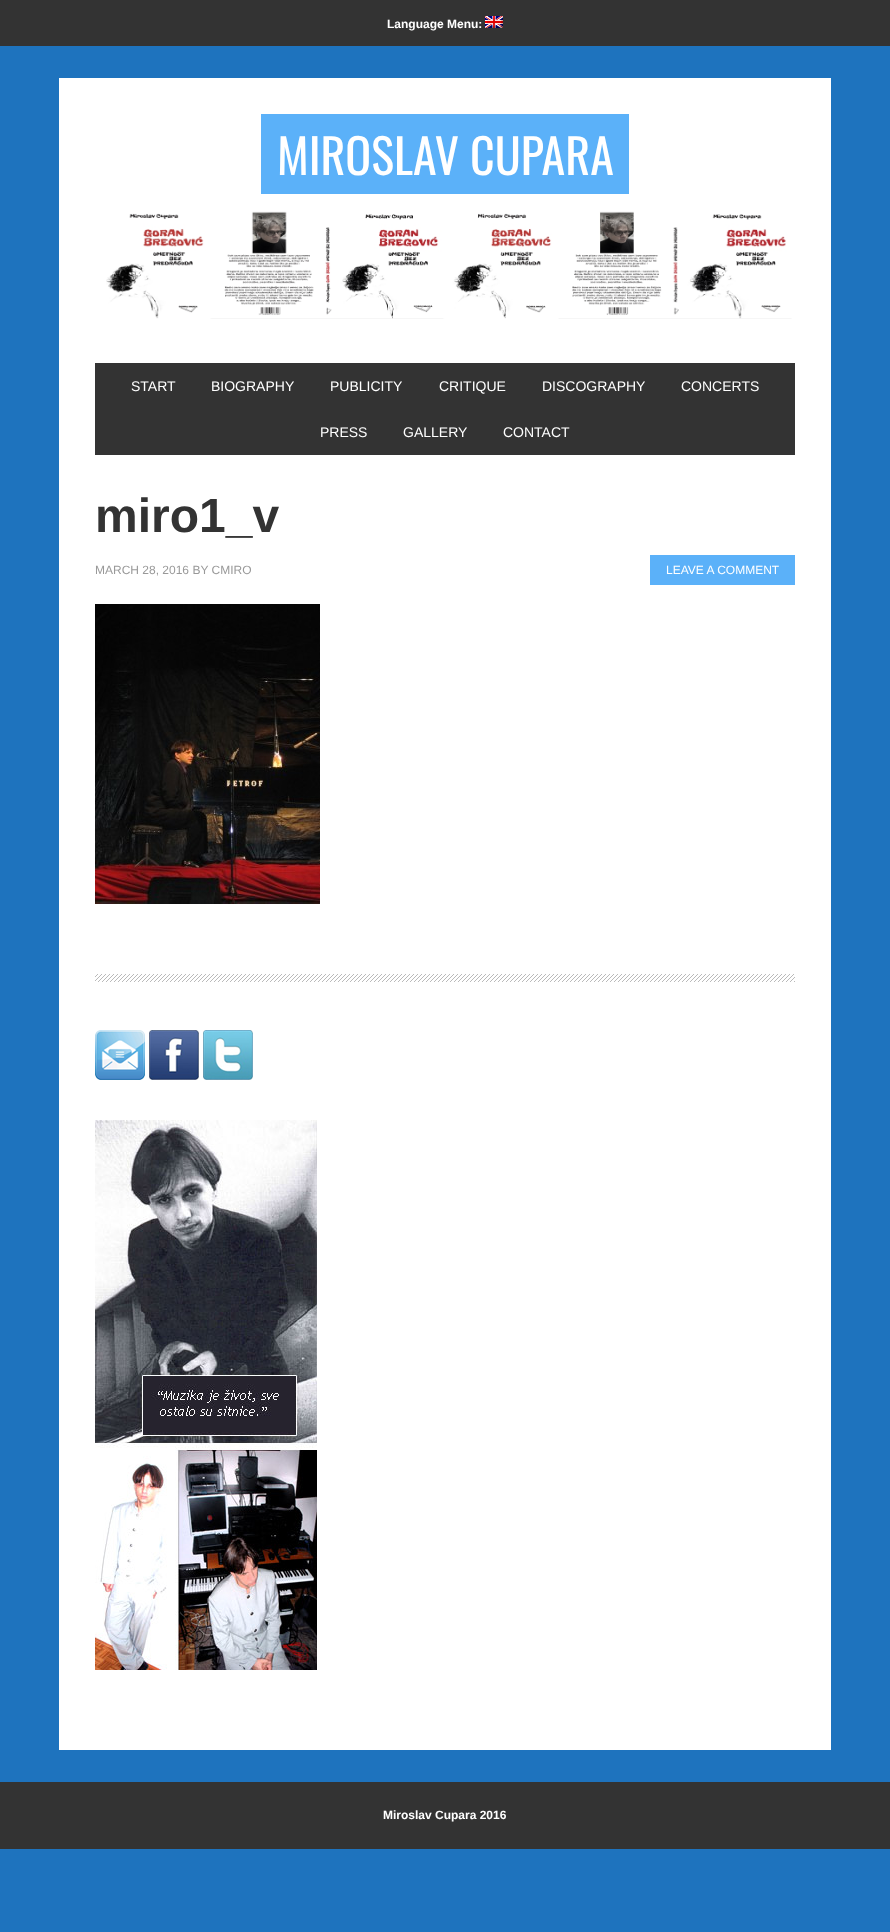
<svg xmlns="http://www.w3.org/2000/svg" width="890" height="1932" viewBox="0 0 890 1932">
  <rect width="100%" height="100%" fill="#1e73be"/>
  <path d="M0 0h890v46H0z" fill="#333"/>
  <image x="485" y="16" width="18" height="12" href="img/1.png"/>
  <path d="M59 78h772v1672H59z" fill="#fff"/>
  <path d="M261 114h368v80H261z" fill="#5bb1f9"/>
  <image x="106" y="211" width="686" height="108" href="img/2.png"/>
  <path d="M95 363h700v92H95z" fill="#333"/>
  <image x="95" y="974" width="700" height="8" href="img/3.png"/>
  <path d="M650 555h145v30H650z" fill="#5bb1f9"/>
  <image x="95" y="604" width="225" height="300" href="img/4.png"/>
  <image x="95" y="1030" width="50" height="50" href="img/5.png"/>
  <image x="149" y="1030" width="50" height="50" href="img/6.png"/>
  <image x="203" y="1030" width="50" height="50" href="img/7.png"/>
  <image x="95" y="1120" width="222" height="550" href="img/8.png"/>
  <path d="M0 1782h890v67H0z" fill="#333"/>
  <text x="387" y="28" font-family="Liberation Sans" font-size="12" font-weight="bold" fill="#fff">Language Menu:</text>
  <text x="277" y="175" font-family="Oswald" font-size="48" fill="#fff">MIROSLAV CUPARA</text>
  <g font-family="Liberation Sans" font-size="14" fill="#fff">
    <text x="131" y="391">START</text>
    <text x="211" y="391">BIOGRAPHY</text>
    <text x="330" y="391">PUBLICITY</text>
    <text x="439" y="391">CRITIQUE</text>
    <text x="542" y="391">DISCOGRAPHY</text>
    <text x="681" y="391">CONCERTS</text>
    <text x="320" y="437">PRESS</text>
    <text x="403" y="437">GALLERY</text>
    <text x="503" y="437">CONTACT</text>
  </g>
  <text x="95" y="532" font-family="Liberation Sans" font-size="48" font-weight="bold" fill="#333">miro1_v</text>
  <text x="95" y="574" font-family="Liberation Sans" font-size="12" fill="#999">MARCH 28, 2016 BY CMIRO</text>
  <text x="666" y="574" font-family="Liberation Sans" font-size="12" fill="#fff">LEAVE A COMMENT</text>
  <text x="383" y="1819" font-family="Liberation Sans" font-size="12" font-weight="bold" fill="#fff">Miroslav Cupara 2016</text>
</svg>
